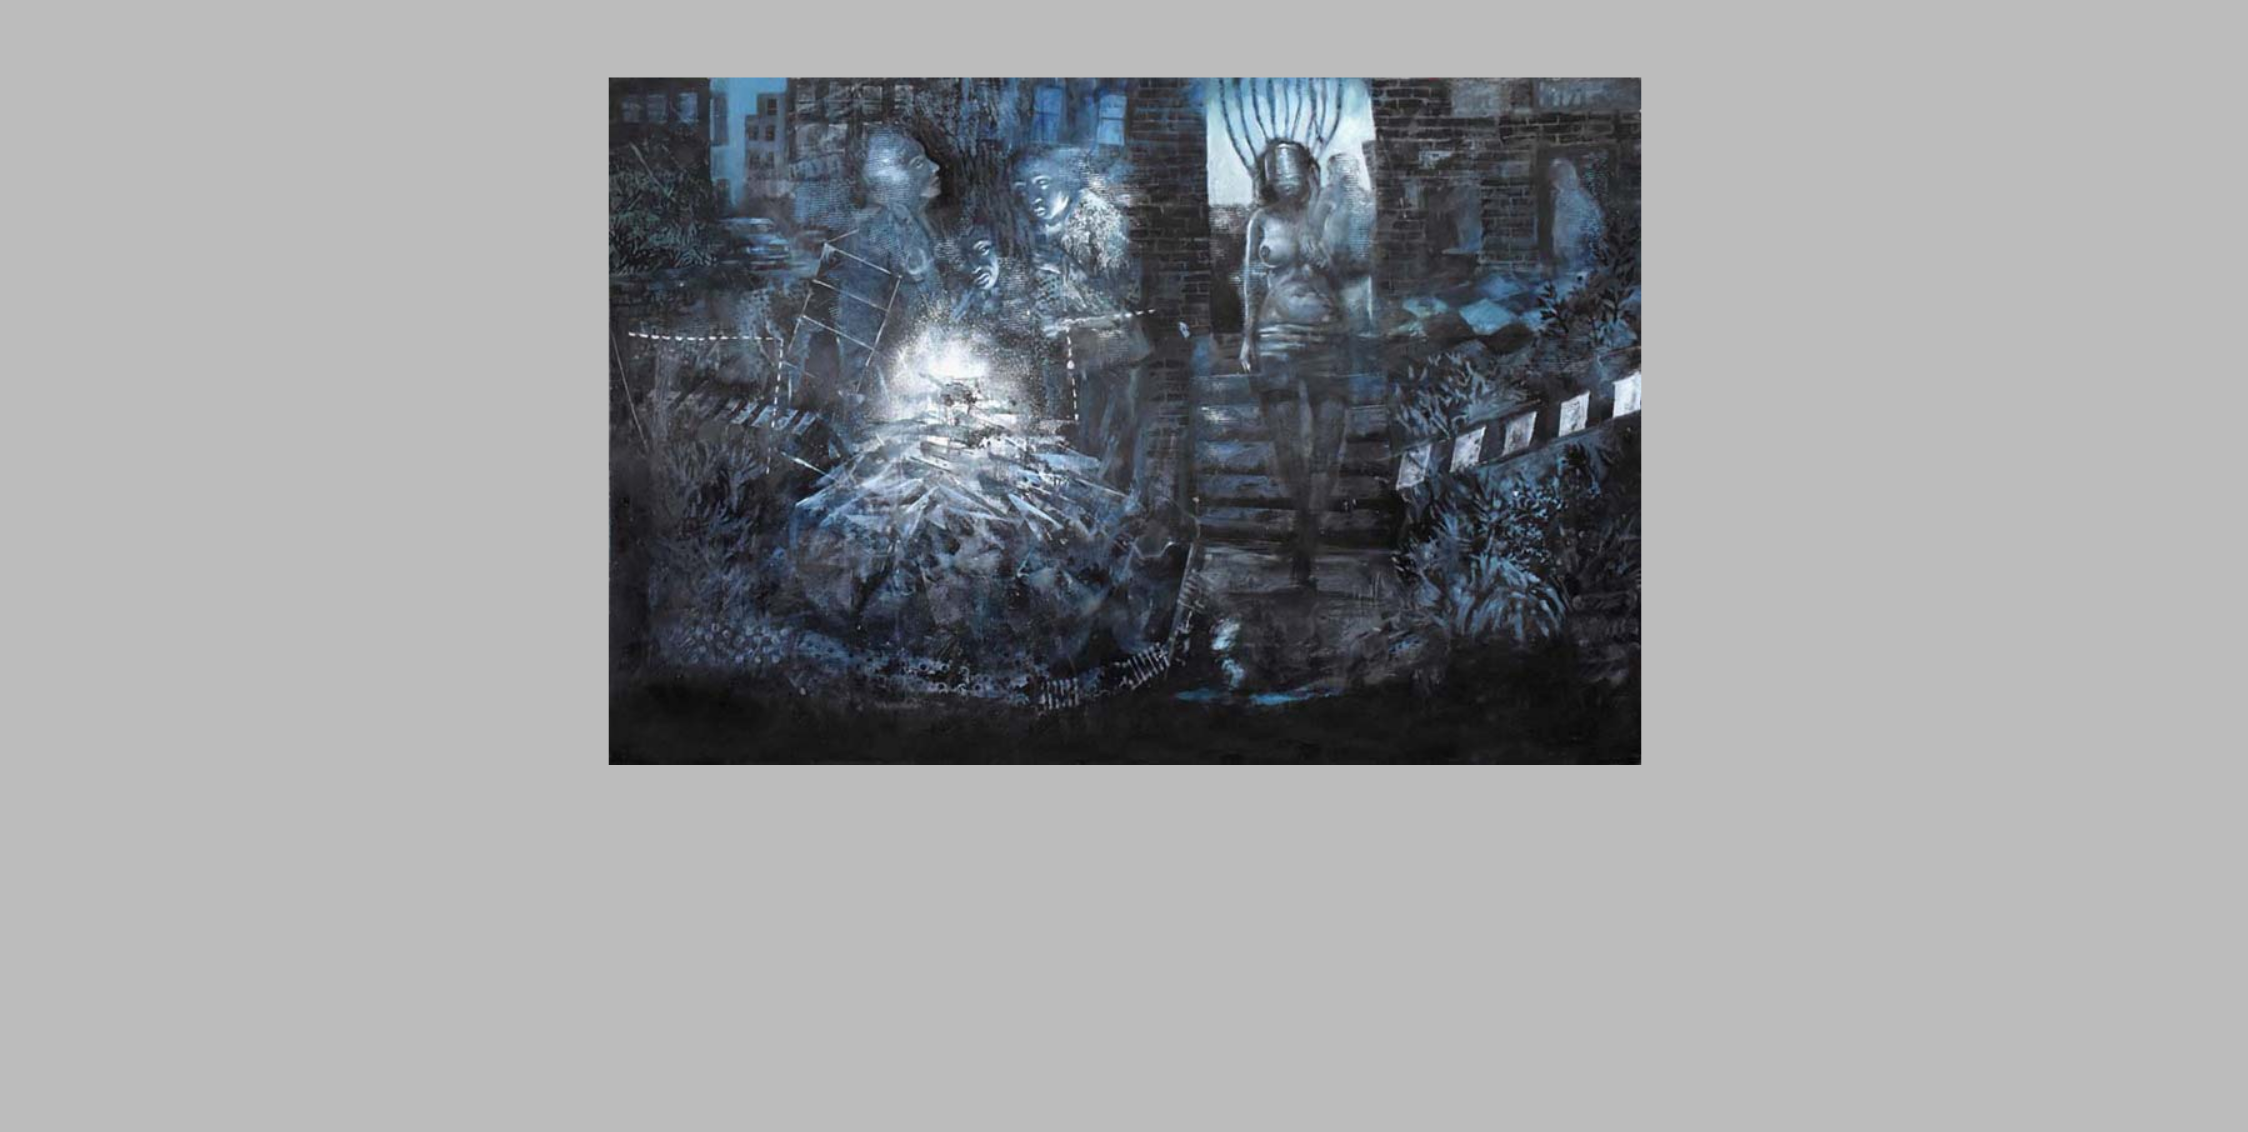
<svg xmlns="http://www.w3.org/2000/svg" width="2248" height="1132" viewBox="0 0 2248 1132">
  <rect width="100%" height="100%" fill="#bcbcbc"/>
  <image x="608" y="77" width="1034" height="688" href="img/1.png"/>
</svg>
